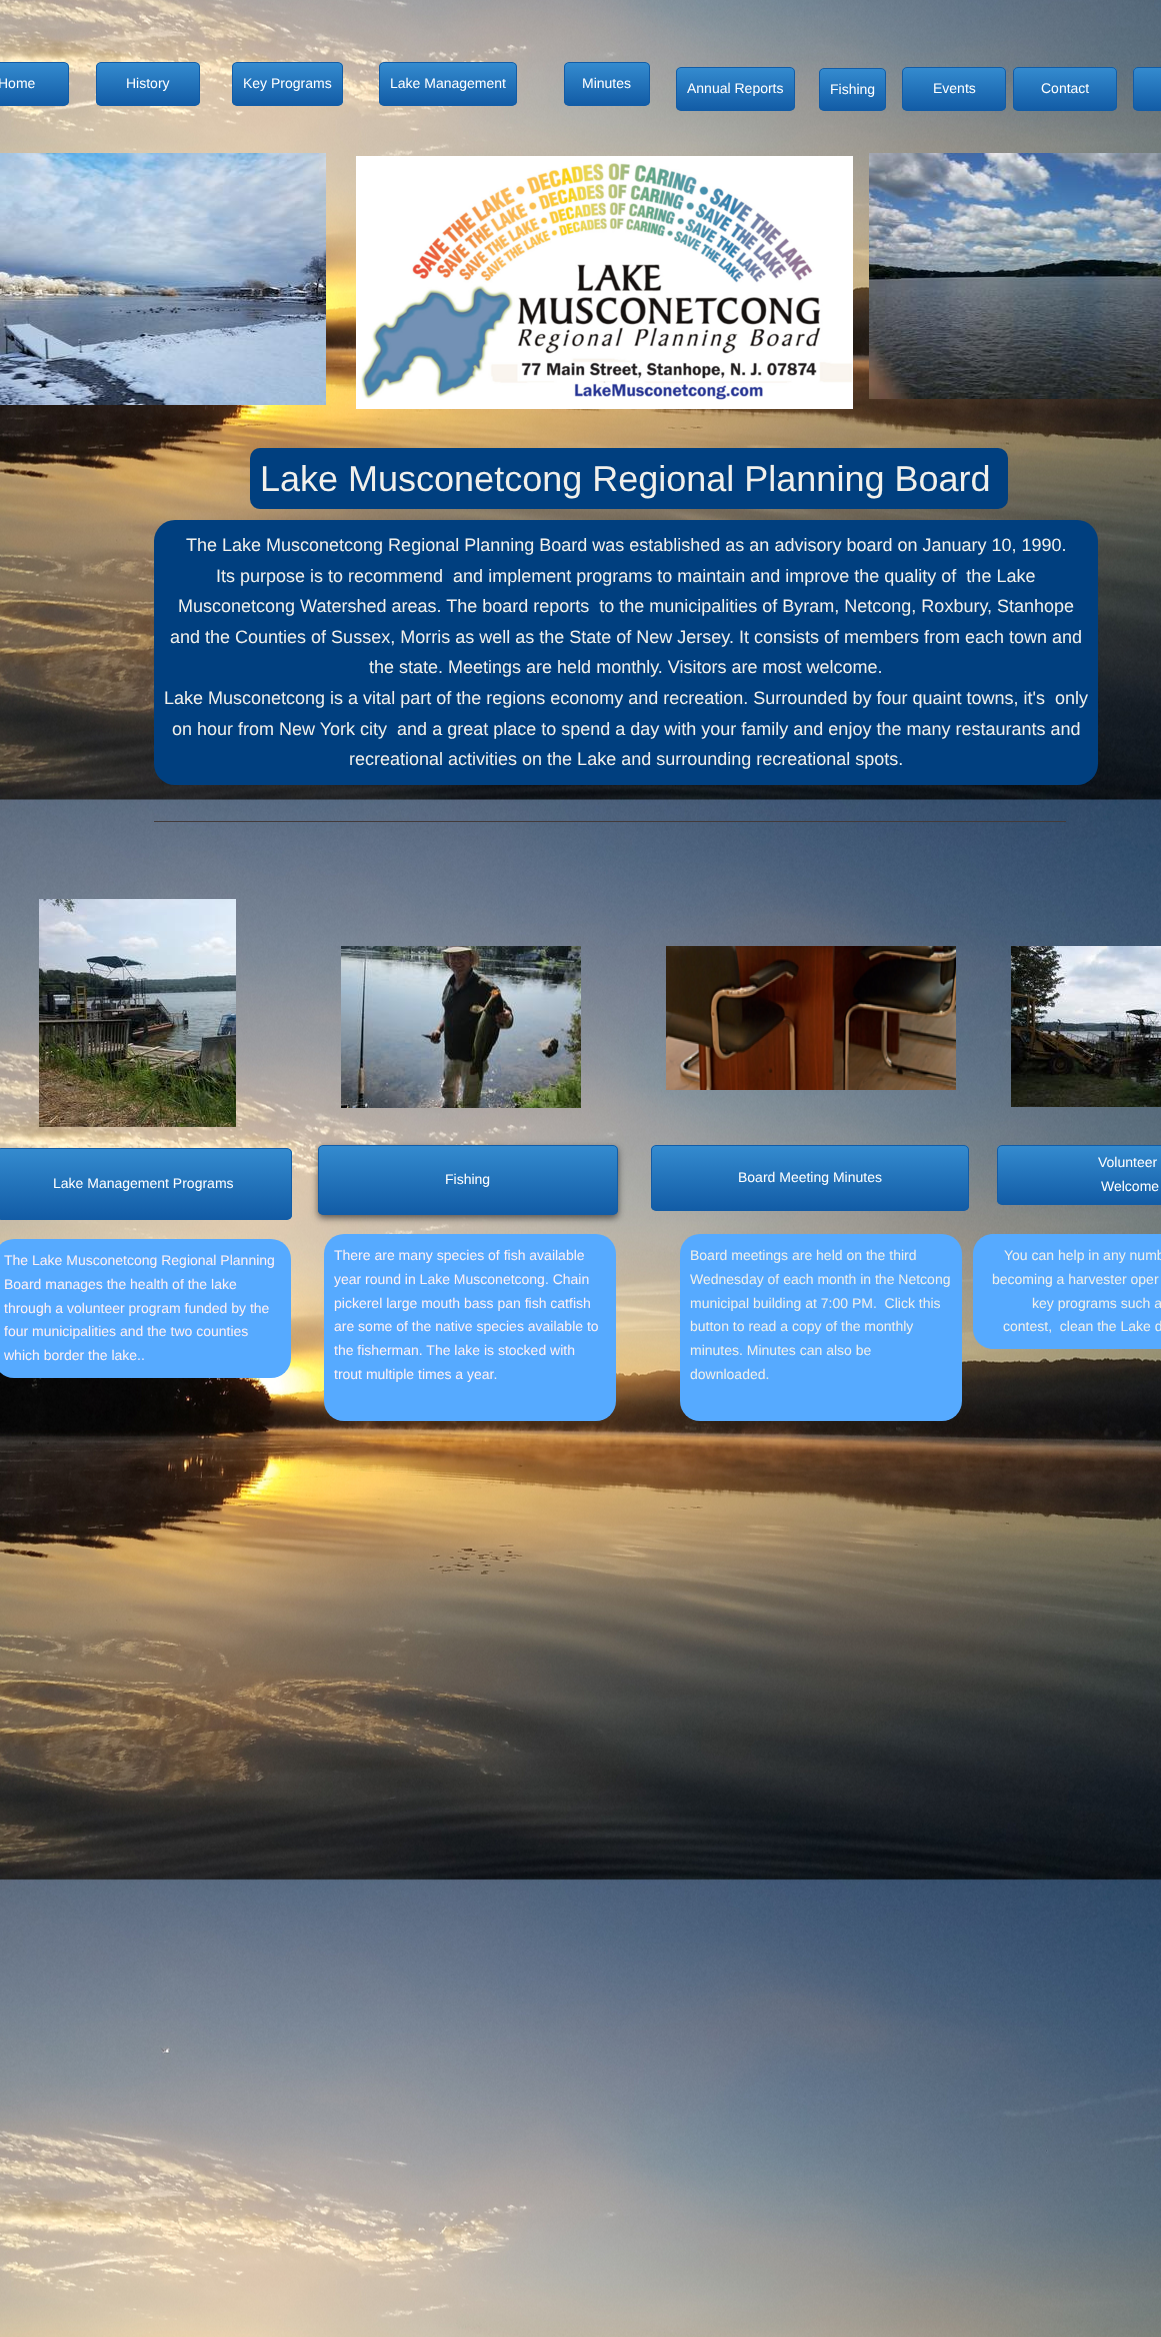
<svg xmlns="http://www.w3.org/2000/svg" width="1161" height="2337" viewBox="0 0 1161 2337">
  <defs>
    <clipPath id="clip1"><rect x="-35" y="62" width="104" height="44" rx="5"/></clipPath>
    <linearGradient id="g1" gradientUnits="userSpaceOnUse" x1="17" y1="63" x2="17" y2="105"><stop offset="0" stop-color="#348bcf"/><stop offset="1" stop-color="#125ca6"/></linearGradient>
    <clipPath id="clip2"><rect x="96" y="62" width="104" height="44" rx="5"/></clipPath>
    <linearGradient id="g2" gradientUnits="userSpaceOnUse" x1="148" y1="63" x2="148" y2="105"><stop offset="0" stop-color="#348bcf"/><stop offset="1" stop-color="#125ca6"/></linearGradient>
    <clipPath id="clip3"><rect x="232" y="62" width="111" height="44" rx="5"/></clipPath>
    <linearGradient id="g3" gradientUnits="userSpaceOnUse" x1="288" y1="63" x2="288" y2="105"><stop offset="0" stop-color="#348bcf"/><stop offset="1" stop-color="#125ca6"/></linearGradient>
    <clipPath id="clip4"><rect x="379" y="62" width="138" height="44" rx="5"/></clipPath>
    <linearGradient id="g4" gradientUnits="userSpaceOnUse" x1="448" y1="63" x2="448" y2="105"><stop offset="0" stop-color="#348bcf"/><stop offset="1" stop-color="#125ca6"/></linearGradient>
    <clipPath id="clip5"><rect x="564" y="62" width="86" height="44" rx="5"/></clipPath>
    <linearGradient id="g5" gradientUnits="userSpaceOnUse" x1="607" y1="63" x2="607" y2="105"><stop offset="0" stop-color="#348bcf"/><stop offset="1" stop-color="#125ca6"/></linearGradient>
    <clipPath id="clip6"><rect x="676" y="67" width="119" height="44" rx="5"/></clipPath>
    <linearGradient id="g6" gradientUnits="userSpaceOnUse" x1="736" y1="68" x2="736" y2="110"><stop offset="0" stop-color="#348bcf"/><stop offset="1" stop-color="#125ca6"/></linearGradient>
    <clipPath id="clip7"><rect x="819" y="68" width="67" height="43" rx="5"/></clipPath>
    <linearGradient id="g7" gradientUnits="userSpaceOnUse" x1="853" y1="69" x2="853" y2="110"><stop offset="0" stop-color="#348bcf"/><stop offset="1" stop-color="#125ca6"/></linearGradient>
    <clipPath id="clip8"><rect x="902" y="67" width="104" height="44" rx="5"/></clipPath>
    <linearGradient id="g8" gradientUnits="userSpaceOnUse" x1="954" y1="68" x2="954" y2="110"><stop offset="0" stop-color="#348bcf"/><stop offset="1" stop-color="#125ca6"/></linearGradient>
    <clipPath id="clip9"><rect x="1013" y="67" width="104" height="44" rx="5"/></clipPath>
    <linearGradient id="g9" gradientUnits="userSpaceOnUse" x1="1065" y1="68" x2="1065" y2="110"><stop offset="0" stop-color="#348bcf"/><stop offset="1" stop-color="#125ca6"/></linearGradient>
    <clipPath id="clip10"><rect x="1133" y="67" width="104" height="44" rx="5"/></clipPath>
    <linearGradient id="g10" gradientUnits="userSpaceOnUse" x1="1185" y1="68" x2="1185" y2="110"><stop offset="0" stop-color="#348bcf"/><stop offset="1" stop-color="#125ca6"/></linearGradient>
    <clipPath id="clip11"><rect x="-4" y="1148" width="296" height="72" rx="5"/></clipPath>
    <linearGradient id="g11" gradientUnits="userSpaceOnUse" x1="144" y1="1149" x2="144" y2="1219"><stop offset="0" stop-color="#348bcf"/><stop offset="1" stop-color="#125ca6"/></linearGradient>
    <clipPath id="clip12"><rect x="318" y="1145" width="300" height="70" rx="5"/></clipPath>
    <linearGradient id="g12" gradientUnits="userSpaceOnUse" x1="468" y1="1146" x2="468" y2="1214"><stop offset="0" stop-color="#348bcf"/><stop offset="1" stop-color="#125ca6"/></linearGradient>
    <clipPath id="clip13"><rect x="651" y="1145" width="318" height="66" rx="5"/></clipPath>
    <linearGradient id="g13" gradientUnits="userSpaceOnUse" x1="810" y1="1146" x2="810" y2="1210"><stop offset="0" stop-color="#348bcf"/><stop offset="1" stop-color="#125ca6"/></linearGradient>
    <clipPath id="clip14"><rect x="997" y="1145" width="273" height="60" rx="5"/></clipPath>
    <linearGradient id="g14" gradientUnits="userSpaceOnUse" x1="1134" y1="1146" x2="1134" y2="1204"><stop offset="0" stop-color="#348bcf"/><stop offset="1" stop-color="#125ca6"/></linearGradient>
  </defs>
  <rect width="100%" height="100%" fill="#fff"/>
  <image x="0" y="0" width="1161" height="2337" href="img/1.png"/>
  <g clip-path="url(#clip1)">
    <path d="M0 63h69v42H0z" fill="url(#g1)"/>
  </g>
  <rect x="-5.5" y="62.5" width="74" height="43" rx="4.5" fill="none" stroke="#125ca6"/>
  <g clip-path="url(#clip2)">
    <path d="M96 63h104v42H96z" fill="url(#g2)"/>
  </g>
  <rect x="96.5" y="62.5" width="103" height="43" rx="4.5" fill="none" stroke="#125ca6"/>
  <g clip-path="url(#clip3)">
    <path d="M232 63h111v42H232z" fill="url(#g3)"/>
  </g>
  <rect x="232.5" y="62.5" width="110" height="43" rx="4.5" fill="none" stroke="#125ca6"/>
  <g clip-path="url(#clip4)">
    <path d="M379 63h138v42H379z" fill="url(#g4)"/>
  </g>
  <rect x="379.5" y="62.5" width="137" height="43" rx="4.5" fill="none" stroke="#125ca6"/>
  <g clip-path="url(#clip5)">
    <path d="M564 63h86v42H564z" fill="url(#g5)"/>
  </g>
  <rect x="564.5" y="62.5" width="85" height="43" rx="4.5" fill="none" stroke="#125ca6"/>
  <g clip-path="url(#clip6)">
    <path d="M676 68h119v42H676z" fill="url(#g6)"/>
  </g>
  <rect x="676.5" y="67.5" width="118" height="43" rx="4.5" fill="none" stroke="#125ca6"/>
  <g clip-path="url(#clip7)">
    <path d="M819 69h67v41H819z" fill="url(#g7)"/>
  </g>
  <rect x="819.5" y="68.5" width="66" height="42" rx="4.5" fill="none" stroke="#125ca6"/>
  <g clip-path="url(#clip8)">
    <path d="M902 68h104v42H902z" fill="url(#g8)"/>
  </g>
  <rect x="902.5" y="67.5" width="103" height="43" rx="4.5" fill="none" stroke="#125ca6"/>
  <g clip-path="url(#clip9)">
    <path d="M1013 68h104v42H1013z" fill="url(#g9)"/>
  </g>
  <rect x="1013.5" y="67.5" width="103" height="43" rx="4.5" fill="none" stroke="#125ca6"/>
  <g clip-path="url(#clip10)">
    <path d="M1133 68h28v42H1133z" fill="url(#g10)"/>
  </g>
  <rect x="1133.5" y="67.5" width="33" height="43" rx="4.5" fill="none" stroke="#125ca6"/>
  <image x="0" y="153" width="326" height="252" href="img/2.png"/>
  <image x="356" y="156" width="497" height="253" href="img/3.png"/>
  <image x="869" y="153" width="292" height="246" href="img/4.png"/>
  <rect x="250" y="448" width="758" height="61" rx="10" fill="#003f7f"/>
  <rect x="154" y="520" width="944" height="265" rx="21" fill="#003f7f"/>
  <path d="M154 821h912v1H154z" fill="#423a3a"/>
  <image x="39" y="899" width="197" height="228" href="img/5.png"/>
  <image x="341" y="946" width="240" height="162" href="img/6.png"/>
  <image x="666" y="946" width="290" height="144" href="img/7.png"/>
  <image x="1011" y="946" width="150" height="161" href="img/8.png"/>
  <g clip-path="url(#clip11)">
    <path d="M0 1149h292v70H0z" fill="url(#g11)"/>
  </g>
  <rect x="-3.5" y="1148.5" width="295" height="71" rx="4.5" fill="none" stroke="#125ca6"/>
  <rect x="318" y="1148" width="300" height="70" rx="5" fill="#323232bf" filter="blur(3.5px)"/>
  <g clip-path="url(#clip12)">
    <path d="M318 1146h300v68H318z" fill="url(#g12)"/>
  </g>
  <rect x="318.5" y="1145.5" width="299" height="69" rx="4.5" fill="none" stroke="#125ca6"/>
  <g clip-path="url(#clip13)">
    <path d="M651 1146h318v64H651z" fill="url(#g13)"/>
  </g>
  <rect x="651.5" y="1145.5" width="317" height="65" rx="4.5" fill="none" stroke="#125ca6"/>
  <g clip-path="url(#clip14)">
    <path d="M997 1146h164v58H997z" fill="url(#g14)"/>
  </g>
  <rect x="997.5" y="1145.5" width="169" height="59" rx="4.5" fill="none" stroke="#125ca6"/>
  <rect x="-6" y="1239" width="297" height="139" rx="20" fill="#56aaff"/>
  <rect x="324" y="1234" width="292" height="187" rx="20" fill="#56aaff"/>
  <rect x="680" y="1234" width="282" height="187" rx="20" fill="#56aaff"/>
  <path d="M993 1234H1161V1349H993C982 1349 973 1340 973 1329V1254C973 1243 982 1234 993 1234Z" fill="#56aaff"/>
  <g font-family="Liberation Sans" font-size="14" fill="#fff">
    <text x="-2" y="88">Home</text>
    <text x="126" y="88">History</text>
    <text x="243" y="88">Key Programs</text>
    <text x="390" y="88">Lake Management</text>
    <text x="582" y="88">Minutes</text>
    <text x="687" y="93">Annual Reports</text>
    <text x="830" y="94">Fishing</text>
    <text x="933" y="93">Events</text>
    <text x="1041" y="93">Contact</text>
  </g>
  <text x="260" y="491" font-family="Liberation Sans" font-size="36" fill="#f1f0eb">Lake Musconetcong Regional Planning Board</text>
  <g font-family="Liberation Sans" font-size="18" fill="#f1f0eb">
    <text x="186" y="551">The Lake Musconetcong Regional Planning Board was established as an advisory board on January 10, 1990.</text>
    <text x="216" y="582" xml:space="preserve">Its purpose is to recommend  and implement programs to maintain and improve the quality of  the Lake</text>
    <text x="178" y="612" xml:space="preserve">Musconetcong Watershed areas. The board reports  to the municipalities of Byram, Netcong, Roxbury, Stanhope</text>
    <text x="170" y="643">and the Counties of Sussex, Morris as well as the State of New Jersey. It consists of members from each town and</text>
    <text x="369" y="673">the state. Meetings are held monthly. Visitors are most welcome.</text>
    <text x="164" y="704" xml:space="preserve">Lake Musconetcong is a vital part of the regions economy and recreation. Surrounded by four quaint towns, it's  only</text>
    <text x="172" y="735" xml:space="preserve">on hour from New York city  and a great place to spend a day with your family and enjoy the many restaurants and</text>
    <text x="349" y="765">recreational activities on the Lake and surrounding recreational spots.</text>
  </g>
  <g font-family="Liberation Sans" font-size="14" fill="#fff">
    <text x="53" y="1188">Lake Management Programs</text>
    <text x="445" y="1184">Fishing</text>
    <text x="738" y="1182">Board Meeting Minutes</text>
    <text x="1098" y="1167">Volunteer</text>
    <text x="1101" y="1191">Welcome</text>
  </g>
  <g font-family="Liberation Sans" font-size="14" fill="#fff0f5">
    <text x="4" y="1265">The Lake Musconetcong Regional Planning</text>
    <text x="4" y="1289">Board manages the health of the lake</text>
    <text x="4" y="1313">through a volunteer program funded by the</text>
    <text x="4" y="1336">four municipalities and the two counties</text>
    <text x="4" y="1360">which border the lake..</text>
    <text x="334" y="1260">There are many species of fish available</text>
    <text x="334" y="1284">year round in Lake Musconetcong. Chain</text>
    <text x="334" y="1308">pickerel large mouth bass pan fish catfish</text>
    <text x="334" y="1331">are some of the native species available to</text>
    <text x="334" y="1355">the fisherman. The lake is stocked with</text>
    <text x="334" y="1379">trout multiple times a year.</text>
  </g>
  <g font-family="Liberation Sans" font-size="14" fill="#f1f0eb">
    <text x="690" y="1260">Board meetings are held on the third</text>
    <text x="690" y="1284">Wednesday of each month in the Netcong</text>
    <text x="690" y="1308" xml:space="preserve">municipal building at 7:00 PM.  Click this</text>
    <text x="690" y="1331">button to read a copy of the monthly</text>
    <text x="690" y="1355">minutes. Minutes can also be</text>
    <text x="690" y="1379">downloaded.</text>
    <text x="1004" y="1260">You can help in any numb</text>
    <text x="992" y="1284">becoming a harvester oper</text>
    <text x="1032" y="1308">key programs such a</text>
    <text x="1003" y="1331" xml:space="preserve">contest,  clean the Lake d</text>
  </g>
</svg>
